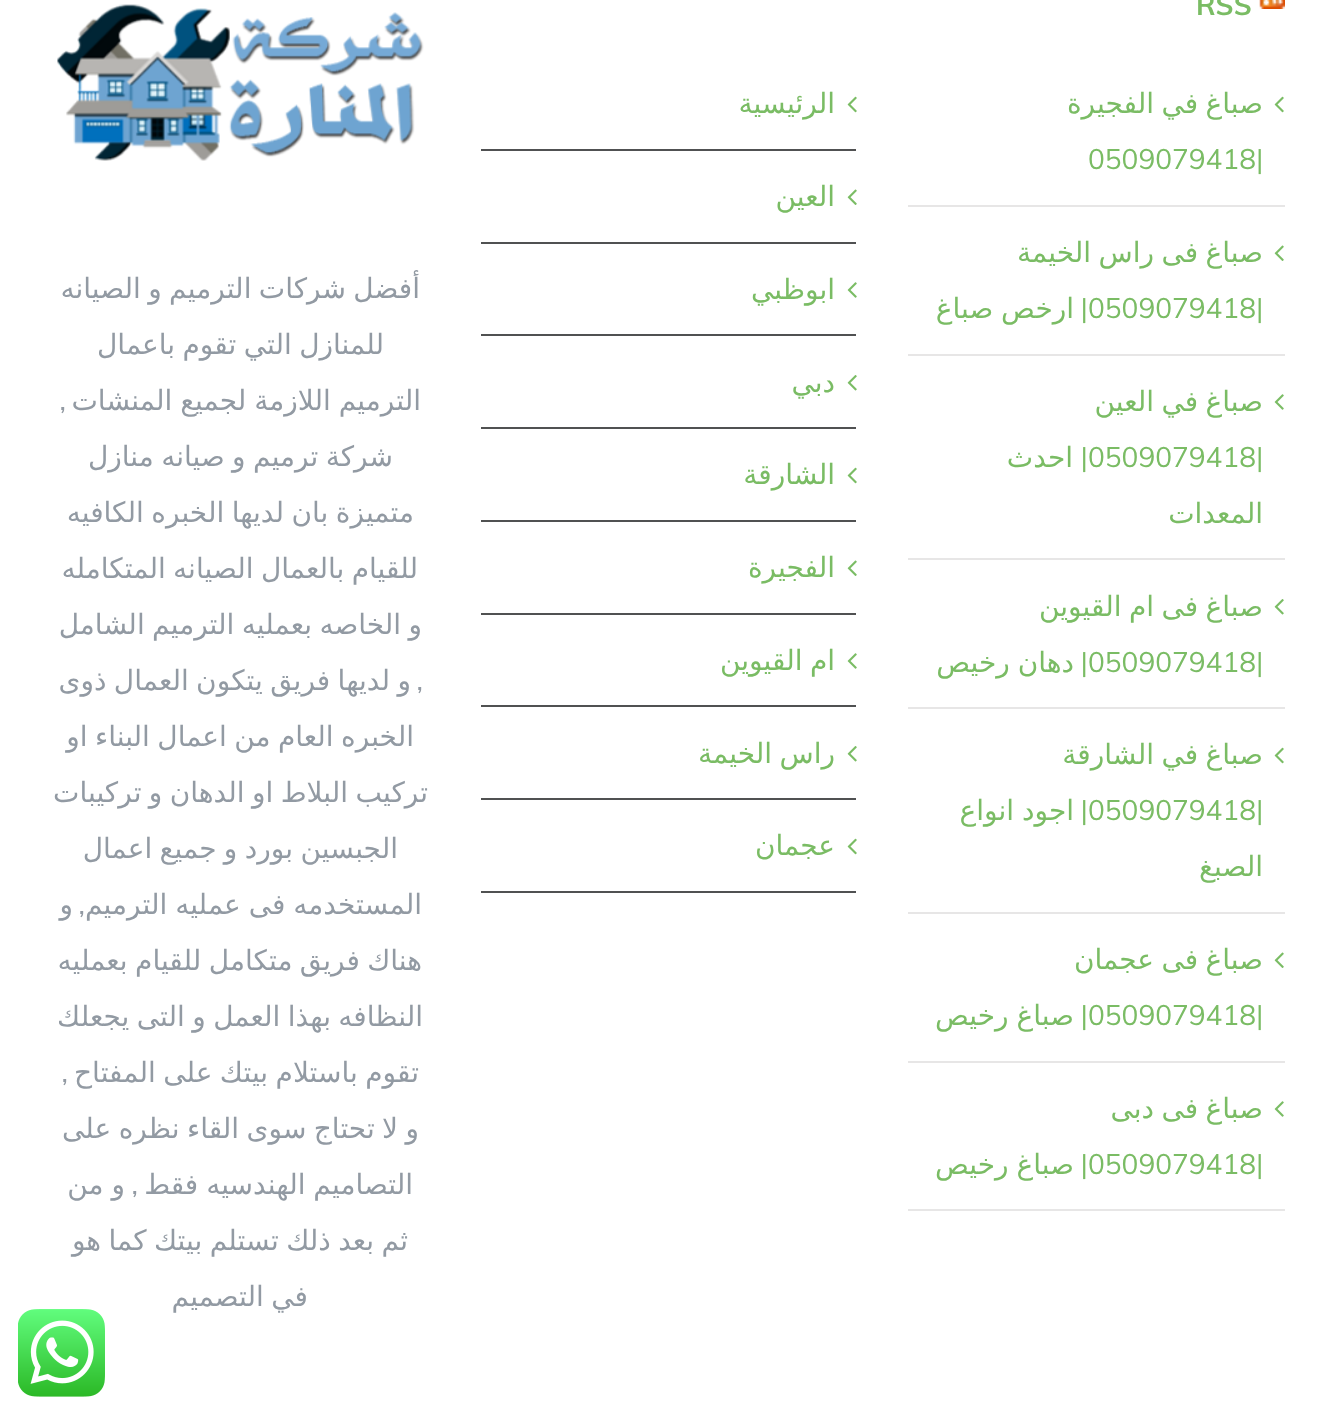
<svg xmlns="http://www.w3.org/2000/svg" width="1336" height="1414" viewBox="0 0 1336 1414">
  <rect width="100%" height="100%" fill="#fff"/>
  <image x="1259" y="0" width="26" height="9" href="img/1.png"/>
  <path d="M908 205h377v2H908z" fill="#e7e6e6"/>
  <image x="1274" y="96" width="10" height="17" href="img/2.png"/>
  <path d="M908 354h377v2H908z" fill="#e7e6e6"/>
  <image x="1274" y="245" width="10" height="16" href="img/3.png"/>
  <path d="M908 558h377v2H908z" fill="#e7e6e6"/>
  <image x="1274" y="394" width="10" height="16" href="img/4.png"/>
  <path d="M908 707h377v2H908z" fill="#e7e6e6"/>
  <image x="1274" y="599" width="10" height="16" href="img/5.png"/>
  <path d="M908 912h377v2H908z" fill="#e7e6e6"/>
  <image x="1274" y="747" width="10" height="17" href="img/2.png"/>
  <path d="M908 1061h377v2H908z" fill="#e7e6e6"/>
  <image x="1274" y="952" width="10" height="16" href="img/3.png"/>
  <path d="M908 1209h377v2H908z" fill="#e7e6e6"/>
  <image x="1274" y="1101" width="10" height="16" href="img/4.png"/>
  <path d="M481 149h375v2H481z" fill="#505152"/>
  <image x="847" y="96" width="10" height="17" href="img/2.png"/>
  <path d="M481 242h375v2H481z" fill="#505152"/>
  <image x="847" y="189" width="10" height="16" href="img/3.png"/>
  <path d="M481 334h375v2H481z" fill="#505152"/>
  <image x="847" y="282" width="10" height="16" href="img/4.png"/>
  <path d="M481 427h375v2H481z" fill="#505152"/>
  <image x="847" y="375" width="10" height="16" href="img/5.png"/>
  <path d="M481 520h375v2H481z" fill="#505152"/>
  <image x="847" y="467" width="10" height="17" href="img/2.png"/>
  <path d="M481 613h375v2H481z" fill="#505152"/>
  <image x="847" y="560" width="10" height="16" href="img/3.png"/>
  <path d="M481 705h375v2H481z" fill="#505152"/>
  <image x="847" y="653" width="10" height="16" href="img/4.png"/>
  <path d="M481 798h375v2H481z" fill="#505152"/>
  <image x="847" y="746" width="10" height="16" href="img/5.png"/>
  <path d="M481 891h375v2H481z" fill="#505152"/>
  <image x="847" y="838" width="10" height="17" href="img/2.png"/>
  <image x="57" y="4" width="367" height="157" href="img/6.png"/>
  <image x="18" y="1309" width="87" height="88" href="img/7.png"/>
  <text x="1196" y="15" font-family="Mulish" font-size="28" font-weight="bold" fill="#7abc64">RSS</text>
  <text x="1263" y="113" word-spacing="-1.5" font-family="DejaVu Sans" font-size="28" direction="rtl" fill="#7abc64">صباغ في الفجيرة</text>
  <text x="1088" y="169" font-family="Mulish" font-size="28" fill="#7abc64">0509079418|</text>
  <text x="1263" y="262" word-spacing="-1.5" font-family="DejaVu Sans" font-size="28" direction="rtl" fill="#7abc64">صباغ فى راس الخيمة</text>
  <text x="1088" y="318" font-family="Mulish" font-size="28" fill="#7abc64">0509079418|</text>
  <text x="1088" y="318" font-family="Mulish" font-size="28" direction="rtl" fill="#7abc64">|</text>
  <g font-family="DejaVu Sans" font-size="28" direction="rtl" fill="#7abc64">
    <text x="1074" y="318" word-spacing="-1">ارخص صباغ</text>
    <text x="1263" y="411" word-spacing="-1.5">صباغ في العين</text>
  </g>
  <text x="1088" y="467" font-family="Mulish" font-size="28" fill="#7abc64">0509079418|</text>
  <text x="1088" y="467" font-family="Mulish" font-size="28" direction="rtl" fill="#7abc64">|</text>
  <g font-family="DejaVu Sans" font-size="28" direction="rtl" fill="#7abc64">
    <text x="1073" y="467">احدث</text>
    <text x="1263" y="523">المعدات</text>
    <text x="1263" y="616" word-spacing="-1.5">صباغ فى ام القيوين</text>
  </g>
  <text x="1088" y="672" font-family="Mulish" font-size="28" fill="#7abc64">0509079418|</text>
  <text x="1088" y="672" font-family="Mulish" font-size="28" direction="rtl" fill="#7abc64">|</text>
  <g font-family="DejaVu Sans" font-size="28" direction="rtl" fill="#7abc64">
    <text x="1074" y="672" word-spacing="-1">دهان رخيص</text>
    <text x="1263" y="764" word-spacing="-1.5">صباغ في الشارقة</text>
  </g>
  <text x="1088" y="820" font-family="Mulish" font-size="28" fill="#7abc64">0509079418|</text>
  <text x="1088" y="820" font-family="Mulish" font-size="28" direction="rtl" fill="#7abc64">|</text>
  <g font-family="DejaVu Sans" font-size="28" direction="rtl" fill="#7abc64">
    <text x="1074" y="820" word-spacing="-1">اجود انواع</text>
    <text x="1263" y="876">الصبغ</text>
    <text x="1263" y="969" word-spacing="-1.5">صباغ فى عجمان</text>
  </g>
  <text x="1088" y="1025" font-family="Mulish" font-size="28" fill="#7abc64">0509079418|</text>
  <text x="1088" y="1025" font-family="Mulish" font-size="28" direction="rtl" fill="#7abc64">|</text>
  <g font-family="DejaVu Sans" font-size="28" direction="rtl" fill="#7abc64">
    <text x="1074" y="1025" word-spacing="-1">صباغ رخيص</text>
    <text x="1263" y="1118" word-spacing="-1.5">صباغ فى دبى</text>
  </g>
  <text x="1088" y="1174" font-family="Mulish" font-size="28" fill="#7abc64">0509079418|</text>
  <text x="1088" y="1174" font-family="Mulish" font-size="28" direction="rtl" fill="#7abc64">|</text>
  <g font-family="DejaVu Sans" font-size="28" direction="rtl" fill="#7abc64">
    <text x="1074" y="1174" word-spacing="-1">صباغ رخيص</text>
    <text x="835" y="113">الرئيسية</text>
    <text x="835" y="206">العين</text>
    <text x="835" y="299">ابوظبي</text>
    <text x="835" y="392">دبي</text>
    <text x="835" y="484">الشارقة</text>
    <text x="835" y="577">الفجيرة</text>
    <text x="835" y="670" word-spacing="-1.5">ام القيوين</text>
    <text x="835" y="763" word-spacing="-1.5">راس الخيمة</text>
    <text x="835" y="855">عجمان</text>
  </g>
  <g font-family="DejaVu Sans" font-size="28" direction="rtl" fill="#929aa3">
    <text x="420" y="298" word-spacing="-1.5">أفضل شركات الترميم و الصيانه</text>
    <text x="384" y="354" word-spacing="-1.5">للمنازل التي تقوم باعمال</text>
    <text x="421" y="410" word-spacing="-1">الترميم اللازمة لجميع المنشات</text>
  </g>
  <text x="66" y="410" font-family="Mulish" font-size="28" direction="rtl" fill="#929aa3">,</text>
  <g font-family="DejaVu Sans" font-size="28" direction="rtl" fill="#929aa3">
    <text x="393" y="466" word-spacing="-1.5">شركة ترميم و صيانه منازل</text>
    <text x="414" y="522" word-spacing="-1.5">متميزة بان لديها الخبره الكافيه</text>
    <text x="418" y="578" word-spacing="-1.5">للقيام بالعمال الصيانه المتكامله</text>
    <text x="422" y="634" word-spacing="-1.5">و الخاصه بعمليه الترميم الشامل</text>
  </g>
  <text x="423" y="690" font-family="Mulish" font-size="28" direction="rtl" fill="#929aa3">,</text>
  <g font-family="DejaVu Sans" font-size="28" direction="rtl" fill="#929aa3">
    <text x="411" y="690" word-spacing="-1.5">و لديها فريق يتكون العمال ذوى</text>
    <text x="414" y="746" word-spacing="-1.5">الخبره العام من اعمال البناء او</text>
    <text x="428" y="802" word-spacing="-1.5">تركيب البلاط او الدهان و تركيبات</text>
    <text x="398" y="858" word-spacing="-1.5">الجبسين بورد و جميع اعمال</text>
    <text x="422" y="914" word-spacing="-1">المستخدمه فى عمليه الترميم</text>
  </g>
  <text x="85" y="914" font-family="Mulish" font-size="28" direction="rtl" fill="#929aa3">,</text>
  <g font-family="DejaVu Sans" font-size="28" direction="rtl" fill="#929aa3">
    <text x="73" y="914">و</text>
    <text x="422" y="970" word-spacing="-1.5">هناك فريق متكامل للقيام بعمليه</text>
    <text x="423" y="1026" word-spacing="-1.5">النظافه بهذا العمل و التى يجعلك</text>
    <text x="419" y="1082" word-spacing="-1.5">تقوم باستلام بيتك على المفتاح</text>
  </g>
  <text x="68" y="1082" font-family="Mulish" font-size="28" direction="rtl" fill="#929aa3">,</text>
  <g font-family="DejaVu Sans" font-size="28" direction="rtl" fill="#929aa3">
    <text x="419" y="1138" word-spacing="-1.5">و لا تحتاج سوى القاء نظره على</text>
    <text x="413" y="1194" word-spacing="-1">التصاميم الهندسيه فقط</text>
  </g>
  <text x="138" y="1194" font-family="Mulish" font-size="28" direction="rtl" fill="#929aa3">,</text>
  <g font-family="DejaVu Sans" font-size="28" direction="rtl" fill="#929aa3">
    <text x="125" y="1194" word-spacing="-1">و من</text>
    <text x="408" y="1250" word-spacing="-1.5">ثم بعد ذلك تستلم بيتك كما هو</text>
    <text x="308" y="1306" word-spacing="-1.5">في التصميم</text>
  </g>
</svg>
